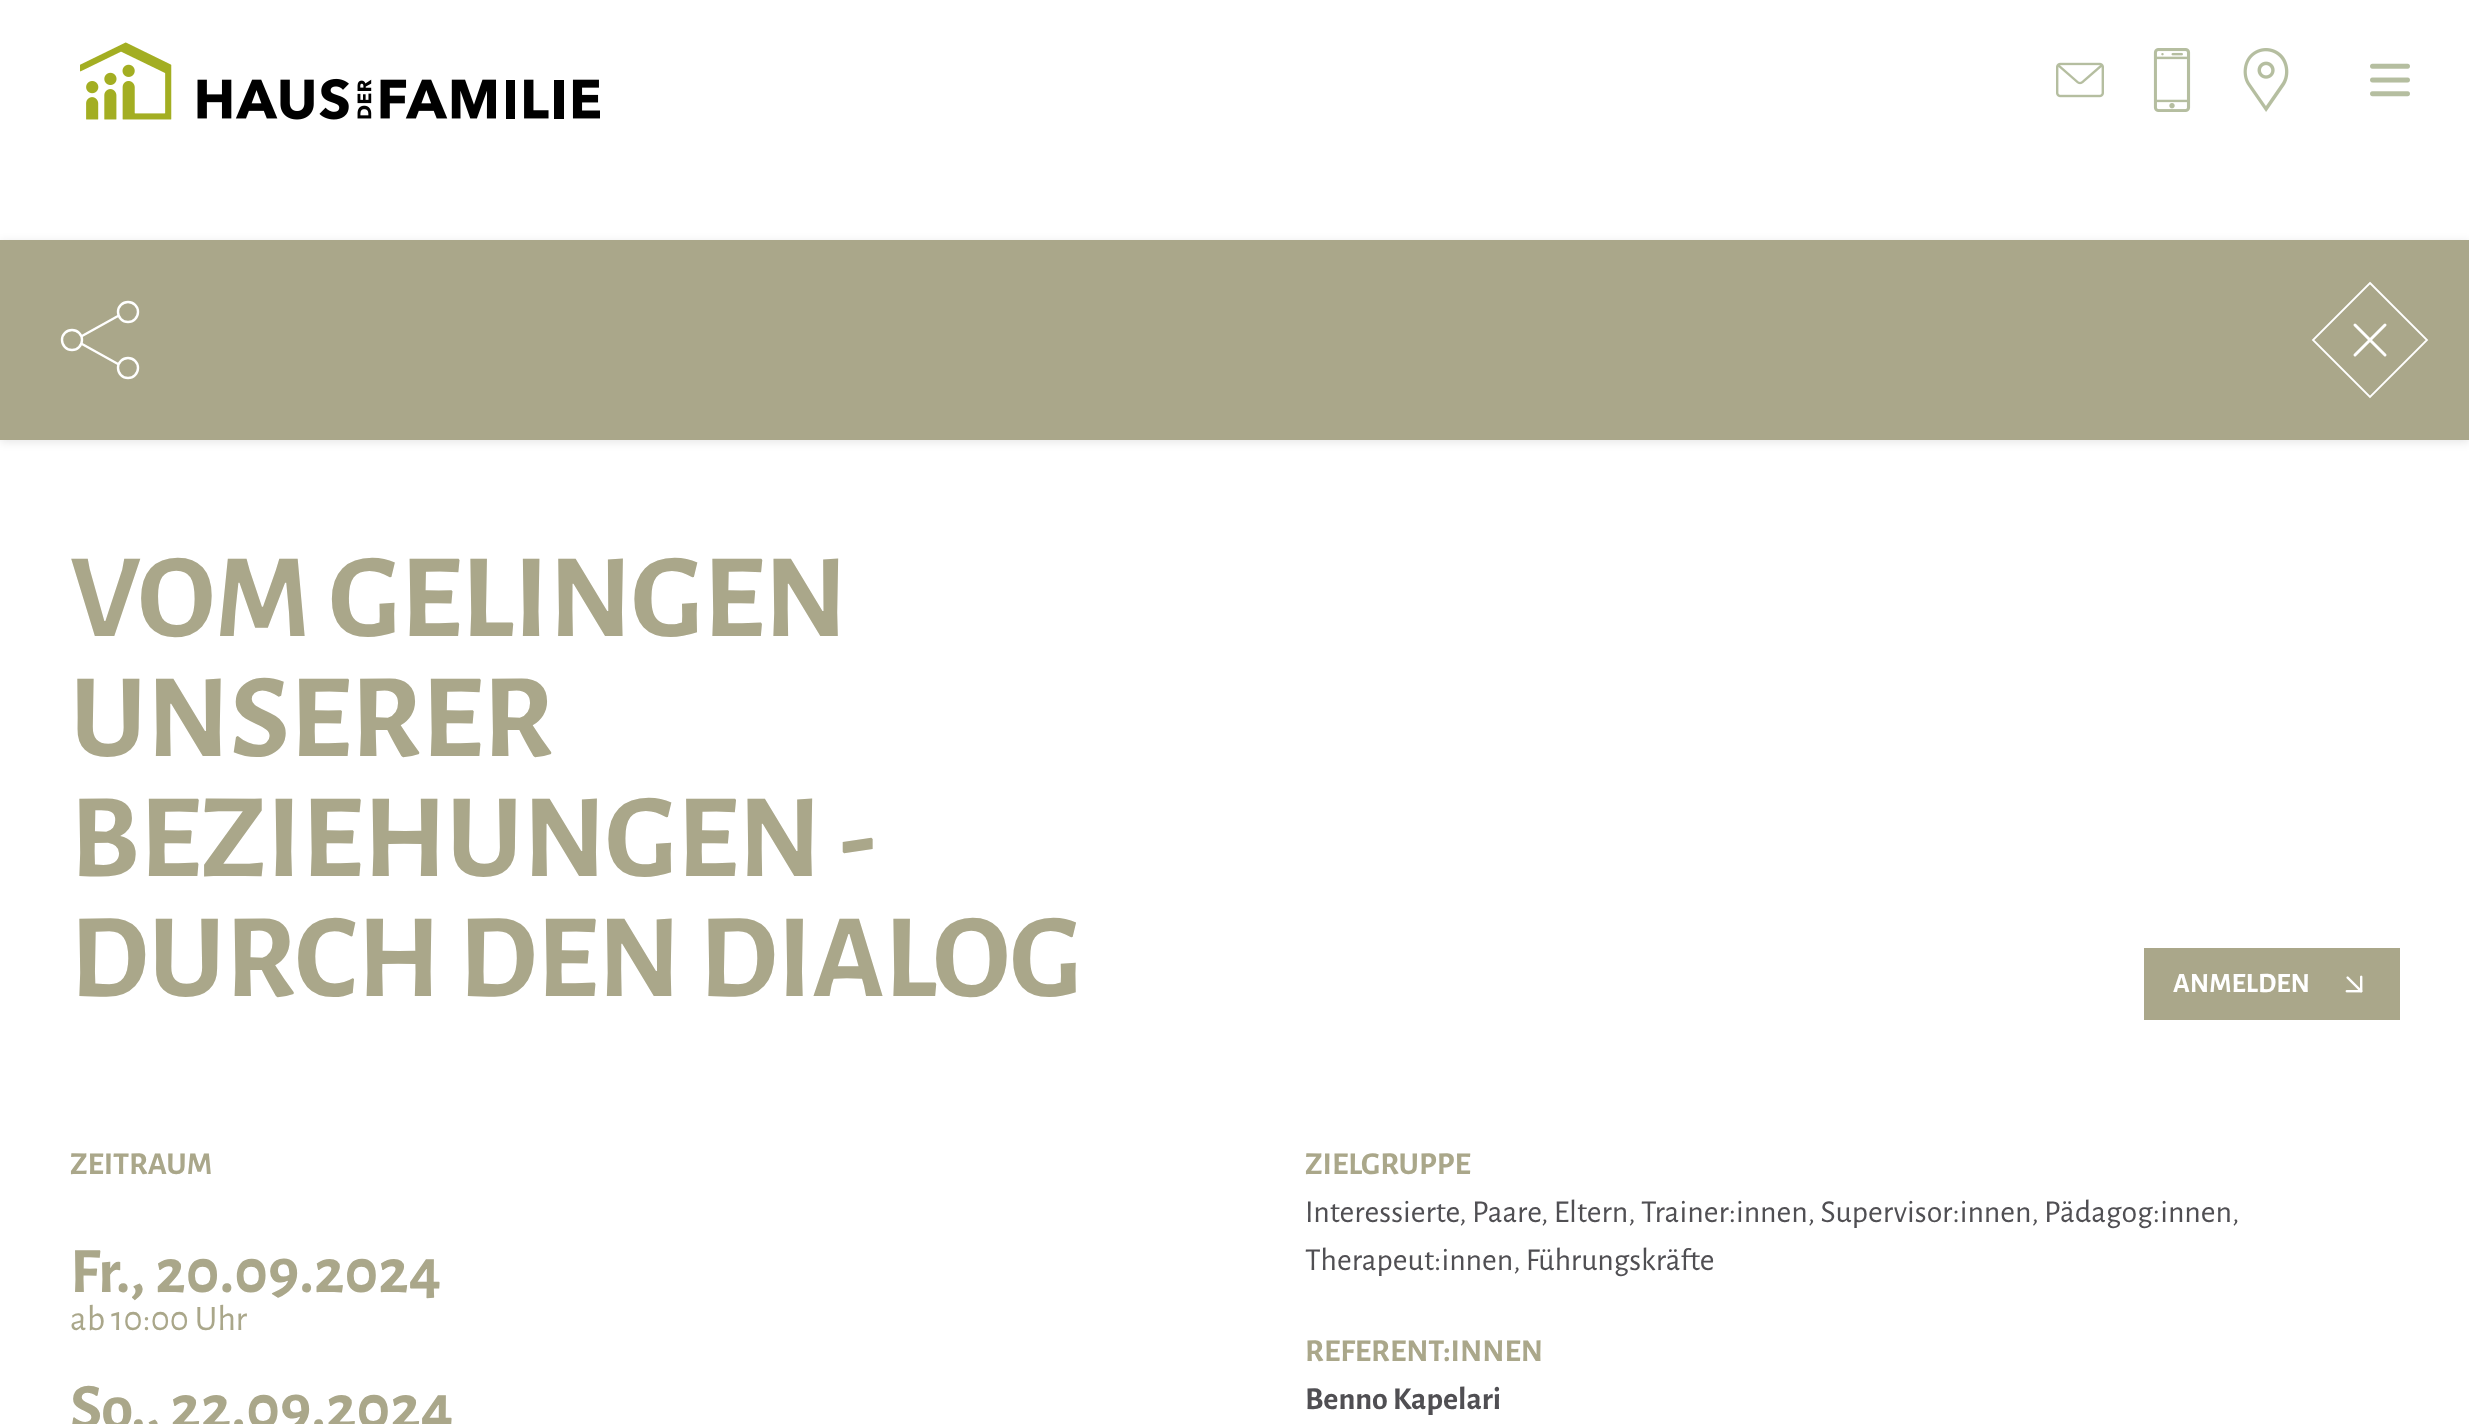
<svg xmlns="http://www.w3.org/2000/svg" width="2469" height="1424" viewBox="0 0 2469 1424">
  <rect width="100%" height="100%" fill="#fff"/>
  <image x="80" y="42" width="520" height="78" href="img/1.png"/>
  <image x="2056" y="62" width="48" height="36" href="img/2.png"/>
  <image x="2153" y="48" width="38" height="64" href="img/3.png"/>
  <image x="2243" y="48" width="46" height="64" href="img/4.png"/>
  <image x="2370" y="63" width="40" height="34" href="img/5.png"/>
  <path d="M0 242h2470v200H0z" fill="#0000001a" filter="blur(5px)"/>
  <path d="M0 240h2469v200H0z" fill="#aaa78a"/>
  <circle cx="72" cy="340" r="10" fill="none" stroke="#fff" stroke-width="2.4"/>
  <circle cx="128" cy="312" r="10" fill="none" stroke="#fff" stroke-width="2.4"/>
  <circle cx="128" cy="368" r="10" fill="none" stroke="#fff" stroke-width="2.4"/>
  <path d="M82 336L118 316M82 344L118 364" fill="none" stroke="#fff" stroke-width="2.4" stroke-linecap="round"/>
  <path d="M2370 283L2427 340L2370 397L2313 340Z" fill="none" stroke="#fff" stroke-width="1.8" stroke-linecap="square"/>
  <path d="M2355 325L2385 355M2355 355L2385 325" fill="none" stroke="#fff" stroke-width="3" stroke-linecap="round"/>
  <path d="M2144 948h256v72H2144z" fill="#aaa78a"/>
  <image x="2345" y="975" width="18" height="18" href="img/6.png"/>
  <g font-family="Alegreya Sans" font-size="120" font-weight="bold" fill="#aaa78a">
    <text x="70" y="636">VOM GELINGEN</text>
    <text x="70" y="756">UNSERER</text>
    <text x="70" y="876">BEZIEHUNGEN -</text>
    <text x="70" y="996">DURCH DEN DIALOG</text>
  </g>
  <text x="2173" y="992" font-family="Alegreya Sans" font-size="28" font-weight="bold" fill="#fff">ANMELDEN</text>
  <text x="70" y="1174" font-family="Alegreya Sans" font-size="32" font-weight="bold" fill="#aaa78a">ZEITRAUM</text>
  <text x="70" y="1292" font-family="Alegreya Sans" font-size="64.75" font-weight="bold" fill="#aaa78a">Fr., 20.09.2024</text>
  <text x="70" y="1330" font-family="Alegreya Sans" font-size="36" fill="#aaa78a">ab 10:00 Uhr</text>
  <text x="70" y="1428" font-family="Alegreya Sans" font-size="64.75" font-weight="bold" fill="#aaa78a">So., 22.09.2024</text>
  <text x="1305" y="1174" font-family="Alegreya Sans" font-size="32" font-weight="bold" fill="#aaa78a">ZIELGRUPPE</text>
  <g font-family="Alegreya Sans" font-size="32" fill="#504f53">
    <text x="1305" y="1222">Interessierte, Paare, Eltern, Trainer:innen, Supervisor:innen, Pädagog:innen,</text>
    <text x="1305" y="1270">Therapeut:innen, Führungskräfte</text>
  </g>
  <text x="1305" y="1361" font-family="Alegreya Sans" font-size="32" font-weight="bold" fill="#aaa78a">REFERENT:INNEN</text>
  <text x="1305" y="1409" font-family="Alegreya Sans" font-size="32" font-weight="bold" fill="#504f53">Benno Kapelari</text>
</svg>
